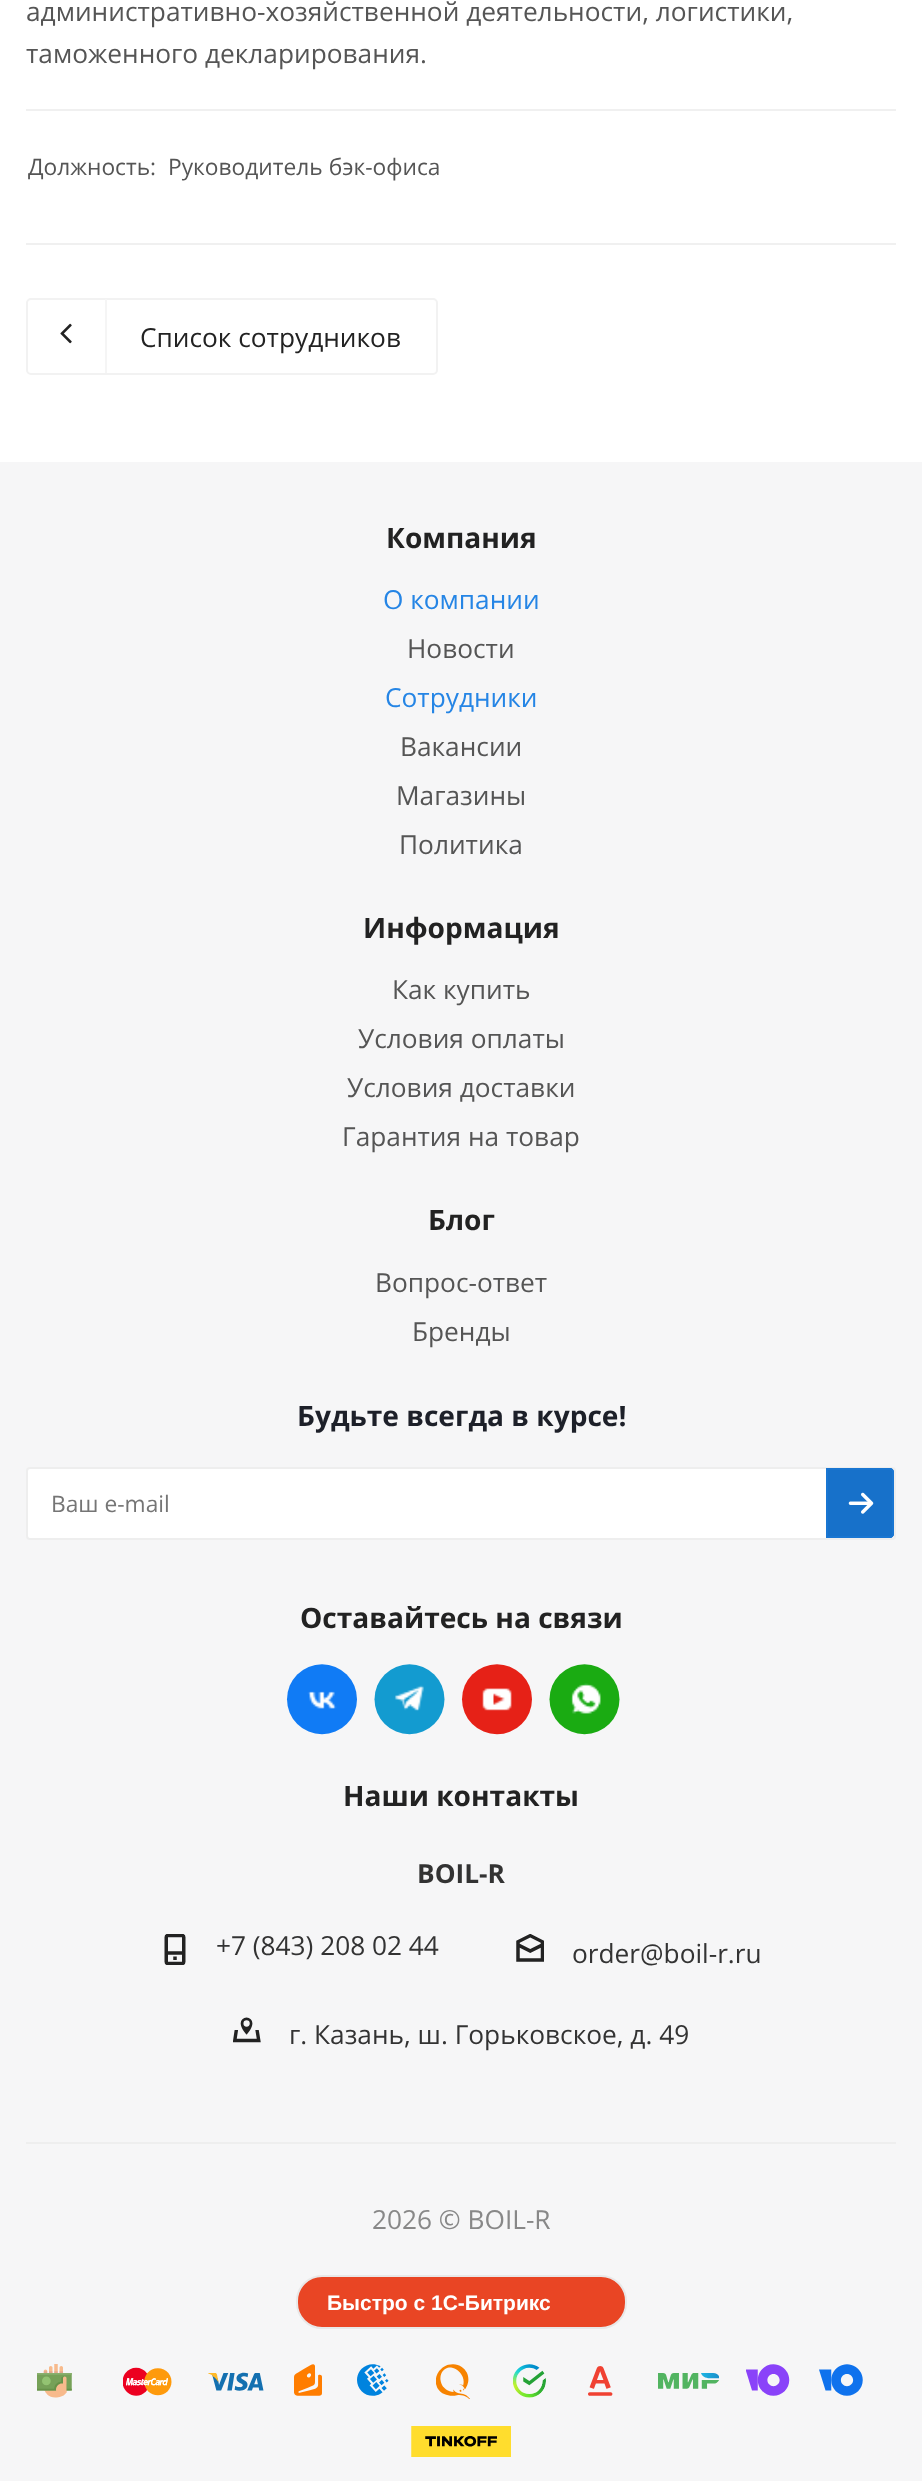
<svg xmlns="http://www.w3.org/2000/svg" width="922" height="2481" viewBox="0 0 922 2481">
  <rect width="100%" height="100%" fill="#fff"/>
  <path d="M26 109h870v2H26z" fill="#f0f0f0"/>
  <path d="M26 243h870v2H26z" fill="#f0f0f0"/>
  <rect x="27" y="299" width="410" height="75" rx="4" fill="none" stroke="#f2f2f2" stroke-width="2"/>
  <image x="60" y="323" width="12" height="21" href="img/1.png"/>
  <path d="M105 299h2v74H105z" fill="#f5f5f5"/>
  <path d="M0 462h922v2019H0z" fill="#f6f6f7"/>
  <rect x="27" y="1468" width="868" height="71" rx="3" fill="#fff" stroke="#eee" stroke-width="2"/>
  <path d="M826 1468H890C892 1468 894 1470 894 1472V1534C894 1536 892 1538 890 1538H826Z" fill="#1771ca"/>
  <image x="848" y="1492" width="26" height="22" href="img/2.png"/>
  <path d="M827 1469H890C891.5 1469 893 1470.5 893 1472V1534C893 1535.5 891.5 1537 890 1537H827Z" fill="none" stroke="#1976d2" stroke-width="2"/>
  <image x="286" y="1664" width="71" height="71" href="img/3.png"/>
  <image x="374" y="1664" width="71" height="71" href="img/4.png"/>
  <image x="461" y="1664" width="71" height="71" href="img/5.png"/>
  <image x="549" y="1664" width="71" height="71" href="img/6.png"/>
  <image x="164" y="1934" width="22" height="31" href="img/7.png"/>
  <image x="516" y="1934" width="28" height="28" href="img/8.png"/>
  <image x="233" y="2017" width="28" height="26" href="img/9.png"/>
  <path d="M26 2142h870v2H26z" fill="#eee"/>
  <rect x="297" y="2276" width="329" height="52" rx="25" fill="#e94524" stroke="#e8e8e8" stroke-width="2"/>
  <image x="37" y="2364" width="35" height="34" href="img/10.png"/>
  <image x="123" y="2367" width="49" height="29" href="img/11.png"/>
  <image x="208" y="2372" width="56" height="19" href="img/12.png"/>
  <image x="294" y="2364" width="28" height="32" href="img/13.png"/>
  <image x="357" y="2364" width="32" height="32" href="img/14.png"/>
  <image x="436" y="2364" width="34" height="35" href="img/15.png"/>
  <image x="513" y="2364" width="33" height="34" href="img/16.png"/>
  <image x="588" y="2366" width="25" height="30" href="img/17.png"/>
  <image x="658" y="2373" width="61" height="16" href="img/18.png"/>
  <image x="746" y="2364" width="44" height="32" href="img/19.png"/>
  <image x="819" y="2364" width="44" height="32" href="img/20.png"/>
  <image x="411" y="2426" width="100" height="31" href="img/21.png"/>
  <g font-family="Open Sans" font-size="26.25" fill="#555">
    <text x="26" y="21">административно-хозяйственной деятельности, логистики,</text>
    <text x="26" y="63">таможенного декларирования.</text>
  </g>
  <g font-family="Open Sans" font-size="22.75" fill="#555">
    <text x="28" y="175">Должность:</text>
    <text x="168" y="175">Руководитель бэк-офиса</text>
  </g>
  <text x="140" y="347" font-family="Open Sans" font-size="26.25" fill="#222">Список сотрудников</text>
  <text x="386" y="548" font-family="Open Sans" font-size="28.1" font-weight="bold" fill="#222">Компания</text>
  <text x="383" y="609" font-family="Open Sans" font-size="26.25" fill="#2585e5">О компании</text>
  <text x="407" y="658" font-family="Open Sans" font-size="26.25" fill="#555">Новости</text>
  <text x="385" y="707" font-family="Open Sans" font-size="26.25" fill="#2585e5">Сотрудники</text>
  <g font-family="Open Sans" font-size="26.25" fill="#555">
    <text x="400" y="756">Вакансии</text>
    <text x="396" y="805">Магазины</text>
    <text x="399" y="854">Политика</text>
  </g>
  <text x="363" y="938" font-family="Open Sans" font-size="28.1" font-weight="bold" fill="#222">Информация</text>
  <g font-family="Open Sans" font-size="26.25" fill="#555">
    <text x="392" y="999">Как купить</text>
    <text x="358" y="1048">Условия оплаты</text>
    <text x="347" y="1097">Условия доставки</text>
    <text x="342" y="1146">Гарантия на товар</text>
  </g>
  <text x="428" y="1230" font-family="Open Sans" font-size="28.1" font-weight="bold" fill="#222">Блог</text>
  <g font-family="Open Sans" font-size="26.25" fill="#555">
    <text x="375" y="1292">Вопрос-ответ</text>
    <text x="412" y="1341">Бренды</text>
  </g>
  <text x="297" y="1426" font-family="Open Sans" font-size="28.1" font-weight="bold" fill="#1d2029">Будьте всегда в курсе!</text>
  <text x="51" y="1512" font-family="Open Sans" font-size="22.75" fill="#757575">Ваш e-mail</text>
  <g font-family="Open Sans" font-size="28.1" font-weight="bold" fill="#222">
    <text x="300" y="1628">Оставайтесь на связи</text>
    <text x="343" y="1806">Наши контакты</text>
  </g>
  <text x="417" y="1883" font-family="Open Sans" font-size="26.25" font-weight="bold" fill="#333">BOIL-R</text>
  <g font-family="Open Sans" font-size="26.25" fill="#333">
    <text x="216" y="1955">+7 (843) 208 02 44</text>
    <text x="572" y="1963">order@boil-r.ru</text>
    <text x="289" y="2044">г. Казань, ш. Горьковское, д. 49</text>
  </g>
  <text x="372" y="2229" font-family="Open Sans" font-size="26.25" fill="#888">2026 © BOIL-R</text>
  <text x="327" y="2310" font-family="Liberation Sans" font-size="21" font-weight="bold" fill="#fff">Быстро с 1С-Битрикс</text>
</svg>
